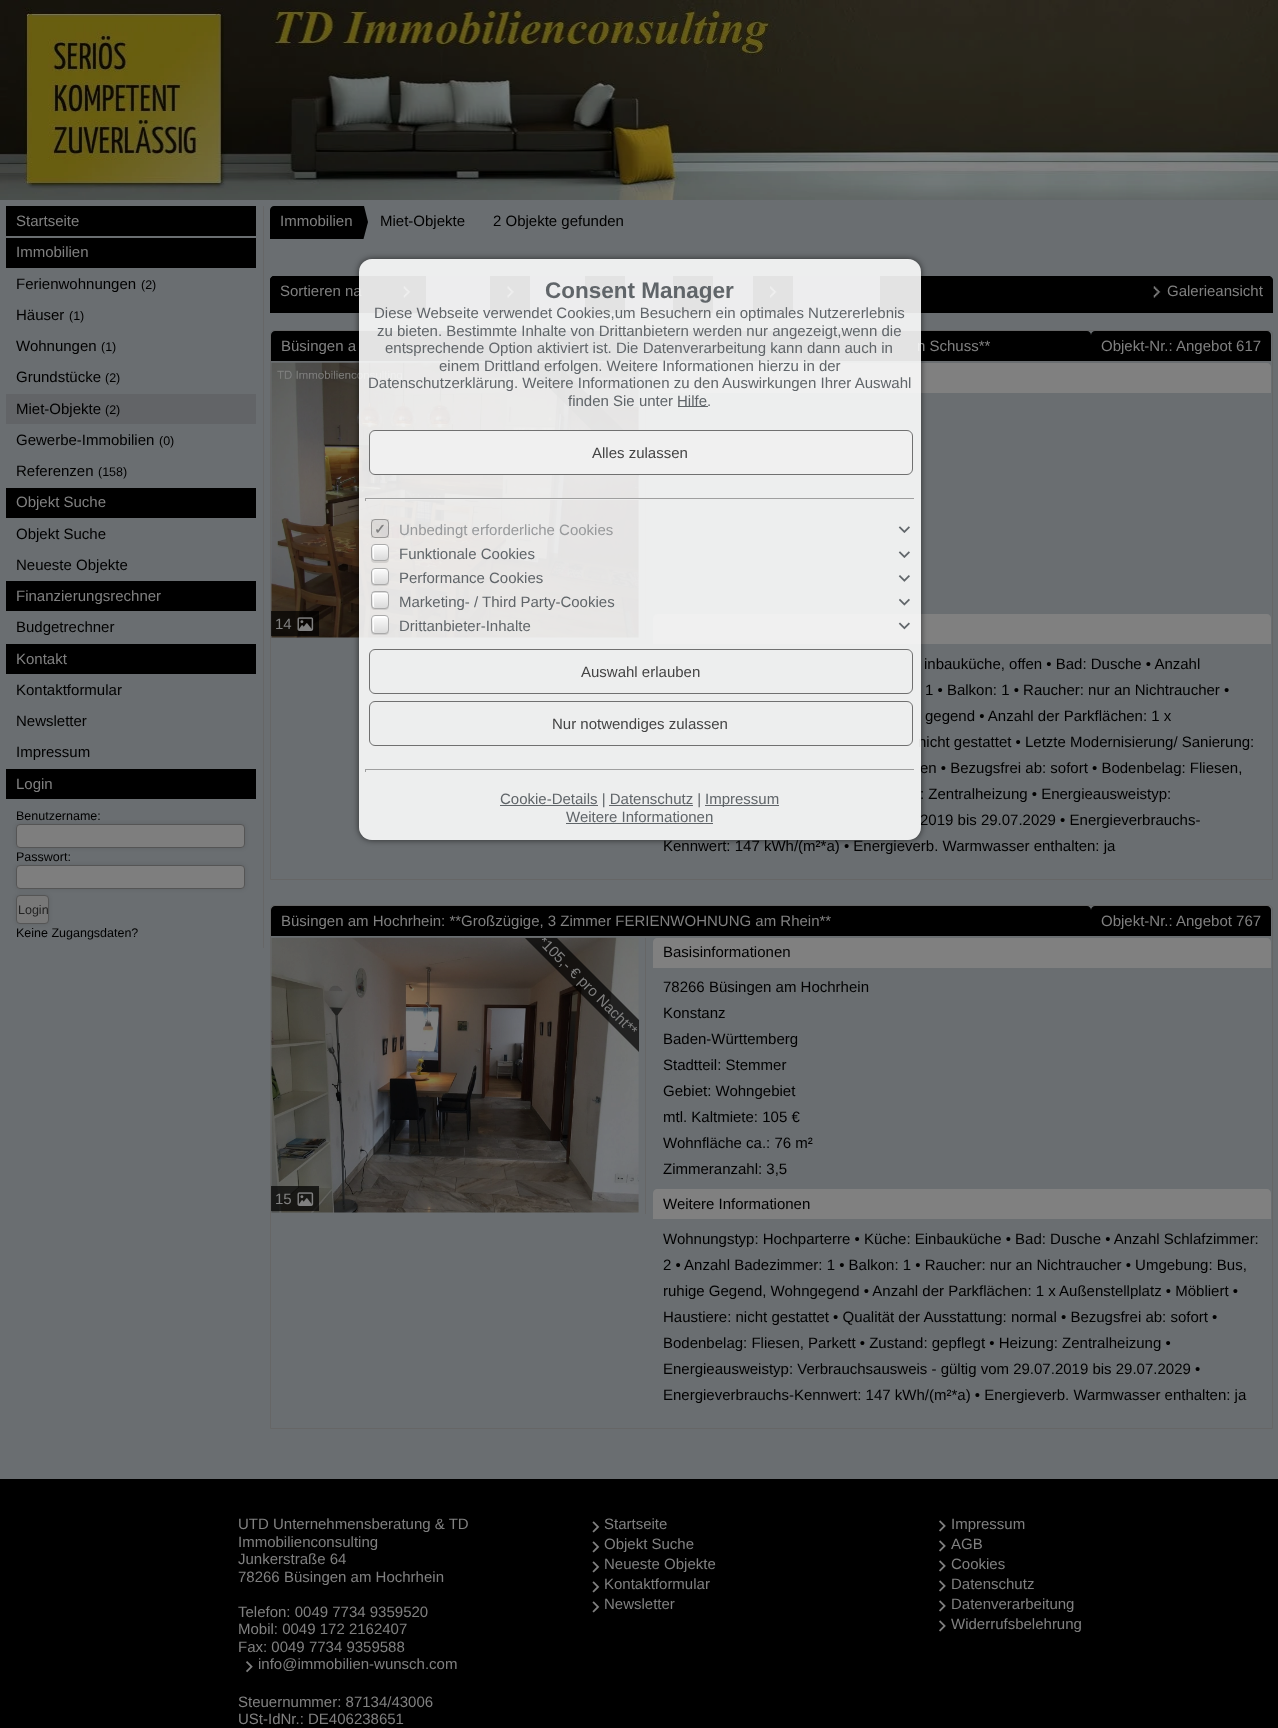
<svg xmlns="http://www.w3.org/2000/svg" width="1278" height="1728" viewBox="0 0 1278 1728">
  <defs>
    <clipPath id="clip1"><path d="M271 363h368v276H271z"/></clipPath>
    <clipPath id="clip2"><path d="M271 938h368v276H271z"/></clipPath>
    <clipPath id="clip3"><path d="M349 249H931V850H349ZM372 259H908C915 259 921 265 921 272V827C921 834 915 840 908 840H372C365 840 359 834 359 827V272C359 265 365 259 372 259Z" clip-rule="evenodd"/></clipPath>
    <clipPath id="clip4"><rect x="371" y="544" width="18" height="17" rx="4"/></clipPath>
    <linearGradient id="g1" gradientUnits="userSpaceOnUse" x1="380" y1="545" x2="380" y2="560"><stop offset="0" stop-color="#fcfcfc"/><stop offset="1" stop-color="#dadada"/></linearGradient>
    <clipPath id="clip5"><rect x="371" y="568" width="18" height="17" rx="4"/></clipPath>
    <linearGradient id="g2" gradientUnits="userSpaceOnUse" x1="380" y1="569" x2="380" y2="584"><stop offset="0" stop-color="#fcfcfc"/><stop offset="1" stop-color="#dadada"/></linearGradient>
    <clipPath id="clip6"><rect x="371" y="591" width="18" height="18" rx="4"/></clipPath>
    <linearGradient id="g3" gradientUnits="userSpaceOnUse" x1="380" y1="578" x2="380" y2="593"><stop offset="0" stop-color="#fcfcfc"/><stop offset="1" stop-color="#dadada"/></linearGradient>
    <linearGradient id="g4" gradientUnits="userSpaceOnUse" x1="380" y1="593" x2="380" y2="608"><stop offset="0" stop-color="#fcfcfc"/><stop offset="1" stop-color="#dadada"/></linearGradient>
    <clipPath id="clip7"><rect x="371" y="615" width="18" height="19" rx="4"/></clipPath>
    <linearGradient id="g5" gradientUnits="userSpaceOnUse" x1="380" y1="616" x2="380" y2="633"><stop offset="0" stop-color="#fcfcfc"/><stop offset="1" stop-color="#dadada"/></linearGradient>
  </defs>
  <rect width="100%" height="100%" fill="#6a6e71"/>
  <image x="0" y="0" width="1278" height="200" href="img/1.png"/>
  <path d="M263 206h1v742H263z" fill="#666"/>
  <path d="M6 206h250v30H6z" fill="#000"/>
  <path d="M6 238h250v30H6z" fill="#000"/>
  <path d="M6 394h250v30H6z" fill="#626467"/>
  <path d="M6 488h250v30H6z" fill="#000"/>
  <path d="M6 581h250v30H6z" fill="#000"/>
  <path d="M6 644h250v30H6z" fill="#000"/>
  <path d="M6 769h250v30H6z" fill="#000"/>
  <rect x="16" y="824" width="229" height="24" rx="4" fill="#0000001a" filter="blur(2px)"/>
  <rect x="16.5" y="824.5" width="228" height="23" rx="3.5" fill="#7e7e7e" stroke="#555"/>
  <rect x="16" y="865" width="229" height="24" rx="4" fill="#0000001a" filter="blur(2px)"/>
  <rect x="16.5" y="865.5" width="228" height="23" rx="3.5" fill="#7e7e7e" stroke="#555"/>
  <rect x="16" y="895" width="33" height="29" rx="4" fill="#0000001a" filter="blur(2px)"/>
  <rect x="16.5" y="895.5" width="32" height="28" rx="3.5" fill="#787878" stroke="#555"/>
  <path d="M274 206H353V239H270V210C270 208 272 206 274 206Z" fill="#000"/>
  <path d="M364 206L368 222L363.5 239H352V206Z" fill="#000"/>
  <path d="M274 276H1269C1271 276 1273 278 1273 280V313H270V280C270 278 272 276 274 276Z" fill="#000"/>
  <path d="M274 276H384C386 276 388 278 388 280V313H270V280C270 278 272 276 274 276Z" fill="#000"/>
  <image x="403" y="286" width="8" height="12" href="img/2.png"/>
  <path d="M426 276h64v37H426z" fill="#696c6f"/>
  <image x="507" y="286" width="7" height="12" href="img/3.png"/>
  <path d="M530 276h55v37H530z" fill="#696c6f"/>
  <image x="602" y="286" width="7" height="12" href="img/3.png"/>
  <path d="M625 276h48v37H625z" fill="#696c6f"/>
  <image x="687" y="288" width="12" height="8" href="img/4.png"/>
  <path d="M713 276h40v37H713z" fill="#696c6f"/>
  <image x="769" y="286" width="8" height="12" href="img/5.png"/>
  <path d="M793 276h87v37H793z" fill="#696c6f"/>
  <image x="1153" y="286" width="8" height="12" href="img/2.png"/>
  <path d="M274 330.5H1269C1271 330.5 1272.5 332 1272.5 334V879.5H270.5V334C270.5 332 272 330.5 274 330.5Z" fill="none" stroke="#666"/>
  <path d="M275 331H1087C1089 331 1091 333 1091 335V361H271V335C271 333 273 331 275 331Z" fill="#000"/>
  <path d="M1095 331H1267C1269 331 1271 333 1271 335V361H1091V335C1091 333 1093 331 1095 331Z" fill="#000"/>
  <path d="M645 363h1v276H645z" fill="#666"/>
  <image x="271" y="362" width="368" height="276" href="img/6.png"/>
  <g clip-path="url(#clip1)">
    <path d="M532 339L656 462L640 478L516 355Z" fill="#000000b3"/>
  </g>
  <path d="M271 611h48v25H271z" fill="#000000b3"/>
  <image x="297" y="617" width="17" height="14" href="img/7.png"/>
  <path d="M657 363H1267C1269 363 1271 365 1271 367V393H653V367C653 365 655 363 657 363Z" fill="#808080"/>
  <path d="M657 614H1267C1269 614 1271 616 1271 618V644H653V618C653 616 655 614 657 614Z" fill="#808080"/>
  <path d="M274 905.5H1269C1271 905.5 1272.5 907 1272.5 909V1428.5H270.5V909C270.5 907 272 905.5 274 905.5Z" fill="none" stroke="#666"/>
  <path d="M275 906H1087C1089 906 1091 908 1091 910V936H271V910C271 908 273 906 275 906Z" fill="#000"/>
  <path d="M1095 906H1267C1269 906 1271 908 1271 910V936H1091V910C1091 908 1093 906 1095 906Z" fill="#000"/>
  <path d="M645 938h1v276H645z" fill="#666"/>
  <image x="271" y="937" width="368" height="276" href="img/8.png"/>
  <g clip-path="url(#clip2)">
    <path d="M532 913L656 1037L640 1053L516 929Z" fill="#000000b3"/>
  </g>
  <path d="M271 1186h48v25H271z" fill="#000000b3"/>
  <image x="297" y="1192" width="17" height="14" href="img/9.png"/>
  <path d="M657 938H1267C1269 938 1271 940 1271 942V968H653V942C653 940 655 938 657 938Z" fill="#808080"/>
  <path d="M657 1189H1267C1269 1189 1271 1191 1271 1193V1219H653V1193C653 1191 655 1189 657 1189Z" fill="#808080"/>
  <path d="M0 1479h1278v249H0z" fill="#000"/>
  <image x="246" y="1661" width="7" height="12" href="img/10.png"/>
  <image x="592" y="1521" width="8" height="12" href="img/11.png"/>
  <image x="592" y="1541" width="8" height="12" href="img/11.png"/>
  <image x="592" y="1561" width="8" height="12" href="img/11.png"/>
  <image x="592" y="1581" width="8" height="12" href="img/11.png"/>
  <image x="592" y="1601" width="8" height="12" href="img/11.png"/>
  <image x="939" y="1520" width="7" height="12" href="img/12.png"/>
  <image x="939" y="1540" width="7" height="12" href="img/12.png"/>
  <image x="939" y="1560" width="7" height="12" href="img/12.png"/>
  <image x="939" y="1580" width="7" height="12" href="img/12.png"/>
  <image x="939" y="1600" width="7" height="12" href="img/12.png"/>
  <image x="939" y="1620" width="7" height="12" href="img/12.png"/>
  <g clip-path="url(#clip3)">
    <rect x="359" y="259" width="562" height="581" rx="13" fill="#00000099" filter="blur(3px)"/>
  </g>
  <g font-family="Liberation Sans" font-size="15" fill="#808080">
    <text x="16" y="226">Startseite</text>
    <text x="16" y="257">Immobilien</text>
  </g>
  <text x="16" y="289" font-family="Liberation Sans" font-size="15" fill="#000">Ferienwohnungen</text>
  <text x="141" y="289" font-family="Liberation Sans" font-size="12.5" fill="#000">(2)</text>
  <text x="16" y="320" font-family="Liberation Sans" font-size="15" fill="#000">Häuser</text>
  <text x="69" y="320" font-family="Liberation Sans" font-size="12.5" fill="#000">(1)</text>
  <text x="16" y="351" font-family="Liberation Sans" font-size="15" fill="#000">Wohnungen</text>
  <text x="101" y="351" font-family="Liberation Sans" font-size="12.5" fill="#000">(1)</text>
  <text x="16" y="382" font-family="Liberation Sans" font-size="15" fill="#000">Grundstücke</text>
  <text x="105" y="382" font-family="Liberation Sans" font-size="12.5" fill="#000">(2)</text>
  <text x="16" y="414" font-family="Liberation Sans" font-size="15" fill="#000">Miet-Objekte</text>
  <text x="105" y="414" font-family="Liberation Sans" font-size="12.5" fill="#000">(2)</text>
  <text x="16" y="445" font-family="Liberation Sans" font-size="15" fill="#000">Gewerbe-Immobilien</text>
  <text x="159" y="445" font-family="Liberation Sans" font-size="12.5" fill="#000">(0)</text>
  <text x="16" y="476" font-family="Liberation Sans" font-size="15" fill="#000">Referenzen</text>
  <text x="98" y="476" font-family="Liberation Sans" font-size="12.5" fill="#000">(158)</text>
  <text x="16" y="507" font-family="Liberation Sans" font-size="15" fill="#808080">Objekt Suche</text>
  <g font-family="Liberation Sans" font-size="15" fill="#000">
    <text x="16" y="539">Objekt Suche</text>
    <text x="16" y="570">Neueste Objekte</text>
  </g>
  <text x="16" y="601" font-family="Liberation Sans" font-size="15" fill="#808080">Finanzierungsrechner</text>
  <text x="16" y="632" font-family="Liberation Sans" font-size="15" fill="#000">Budgetrechner</text>
  <text x="16" y="664" font-family="Liberation Sans" font-size="15" fill="#808080">Kontakt</text>
  <g font-family="Liberation Sans" font-size="15" fill="#000">
    <text x="16" y="695">Kontaktformular</text>
    <text x="16" y="726">Newsletter</text>
    <text x="16" y="757">Impressum</text>
  </g>
  <text x="16" y="789" font-family="Liberation Sans" font-size="15" fill="#808080">Login</text>
  <g font-family="Liberation Sans" font-size="12.5" fill="#000">
    <text x="16" y="820">Benutzername:</text>
    <text x="16" y="861">Passwort:</text>
  </g>
  <text x="18" y="914" font-family="Liberation Sans" font-size="12.5" fill="#222">Login</text>
  <text x="16" y="937" font-family="Liberation Sans" font-size="12.5" fill="#000">Keine Zugangsdaten?</text>
  <text x="280" y="226" font-family="Liberation Sans" font-size="15" fill="#808080">Immobilien</text>
  <g font-family="Liberation Sans" font-size="15" fill="#000">
    <text x="380" y="226">Miet-Objekte</text>
    <text x="493" y="226">2 Objekte gefunden</text>
  </g>
  <g font-family="Liberation Sans" font-size="15" fill="#808080">
    <text x="280" y="296">Sortieren na</text>
    <text x="1167" y="296">Galerieansicht</text>
    <text x="281" y="351">Büsingen a</text>
    <text x="917" y="351">n Schuss**</text>
    <text x="1101" y="351">Objekt-Nr.: Angebot 617</text>
    <text x="275" y="629">14</text>
  </g>
  <g font-family="Liberation Sans" font-size="15" fill="#000">
    <text x="924" y="669">inbauküche, offen • Bad: Dusche • Anzahl</text>
    <text x="925" y="695">1 • Balkon: 1 • Raucher: nur an Nichtraucher •</text>
    <text x="925" y="721">gegend • Anzahl der Parkflächen: 1 x</text>
    <text x="918" y="747">nicht gestattet • Letzte Modernisierung/ Sanierung:</text>
    <text x="920" y="773">en • Bezugsfrei ab: sofort • Bodenbelag: Fliesen,</text>
    <text x="920" y="799">: Zentralheizung • Energieausweistyp:</text>
    <text x="920" y="825">2019 bis 29.07.2029 • Energieverbrauchs-</text>
    <text x="663" y="851">Kennwert: 147 kWh/(m²*a) • Energieverb. Warmwasser enthalten: ja</text>
  </g>
  <g font-family="Liberation Sans" font-size="15" fill="#808080">
    <text x="281" y="926">Büsingen am Hochrhein: **Großzügige, 3 Zimmer FERIENWOHNUNG am Rhein**</text>
    <text x="1101" y="926">Objekt-Nr.: Angebot 767</text>
  </g>
  <g clip-path="url(#clip2)">
    <text x="533" y="938" transform="rotate(45 533 938)" font-family="Liberation Sans" font-size="15" fill="#808080">**105,- € pro Nacht**</text>
  </g>
  <text x="275" y="1204" font-family="Liberation Sans" font-size="15" fill="#808080">15</text>
  <g font-family="Liberation Sans" font-size="15" fill="#000">
    <text x="663" y="957">Basisinformationen</text>
    <text x="663" y="992">78266 Büsingen am Hochrhein</text>
    <text x="663" y="1018">Konstanz</text>
    <text x="663" y="1044">Baden-Württemberg</text>
    <text x="663" y="1070">Stadtteil: Stemmer</text>
    <text x="663" y="1096">Gebiet: Wohngebiet</text>
    <text x="663" y="1122">mtl. Kaltmiete: 105 €</text>
    <text x="663" y="1148">Wohnfläche ca.: 76 m²</text>
    <text x="663" y="1174">Zimmeranzahl: 3,5</text>
    <text x="663" y="1209">Weitere Informationen</text>
    <text x="663" y="1244">Wohnungstyp: Hochparterre • Küche: Einbauküche • Bad: Dusche • Anzahl Schlafzimmer:</text>
    <text x="663" y="1270">2 • Anzahl Badezimmer: 1 • Balkon: 1 • Raucher: nur an Nichtraucher • Umgebung: Bus,</text>
    <text x="663" y="1296">ruhige Gegend, Wohngegend • Anzahl der Parkflächen: 1 x Außenstellplatz • Möbliert •</text>
    <text x="663" y="1322">Haustiere: nicht gestattet • Qualität der Ausstattung: normal • Bezugsfrei ab: sofort •</text>
    <text x="663" y="1348">Bodenbelag: Fliesen, Parkett • Zustand: gepflegt • Heizung: Zentralheizung •</text>
    <text x="663" y="1374">Energieausweistyp: Verbrauchsausweis - gültig vom 29.07.2019 bis 29.07.2029 •</text>
    <text x="663" y="1400">Energieverbrauchs-Kennwert: 147 kWh/(m²*a) • Energieverb. Warmwasser enthalten: ja</text>
  </g>
  <g font-family="Liberation Sans" font-size="15" fill="#808080">
    <text x="238" y="1529">UTD Unternehmensberatung &amp; TD</text>
    <text x="238" y="1547">Immobilienconsulting</text>
    <text x="238" y="1564">Junkerstraße 64</text>
    <text x="238" y="1582">78266 Büsingen am Hochrhein</text>
    <text x="238" y="1617">Telefon: 0049 7734 9359520</text>
    <text x="238" y="1634">Mobil: 0049 172 2162407</text>
    <text x="238" y="1652">Fax: 0049 7734 9359588</text>
    <text x="258" y="1669">info@immobilien-wunsch.com</text>
    <text x="238" y="1707">Steuernummer: 87134/43006</text>
    <text x="238" y="1724">USt-IdNr.: DE406238651</text>
    <text x="604" y="1529">Startseite</text>
    <text x="604" y="1549">Objekt Suche</text>
    <text x="604" y="1569">Neueste Objekte</text>
    <text x="604" y="1589">Kontaktformular</text>
    <text x="604" y="1609">Newsletter</text>
    <text x="951" y="1529">Impressum</text>
    <text x="951" y="1549">AGB</text>
    <text x="951" y="1569">Cookies</text>
    <text x="951" y="1589">Datenschutz</text>
    <text x="951" y="1609">Datenverarbeitung</text>
    <text x="951" y="1629">Widerrufsbelehrung</text>
  </g>
  <rect x="359" y="259" width="562" height="581" rx="13" fill="#fcfcfce6"/>
  <text x="545" y="298" font-family="Liberation Sans" font-size="22.5" font-weight="bold" fill="#606569">Consent Manager</text>
  <g font-family="Liberation Sans" font-size="15" fill="#606569">
    <text x="374" y="318">Diese Webseite verwendet Cookies,um Besuchern ein optimales Nutzererlebnis</text>
    <text x="377" y="336">zu bieten. Bestimmte Inhalte von Drittanbietern werden nur angezeigt,wenn die</text>
    <text x="385" y="353">entsprechende Option aktiviert ist. Die Datenverarbeitung kann dann auch in</text>
    <text x="439" y="371">einem Drittland erfolgen. Weitere Informationen hierzu in der</text>
    <text x="368" y="388">Datenschutzerklärung. Weitere Informationen zu den Auswirkungen Ihrer Auswahl</text>
    <text x="568" y="406">finden Sie unter</text>
  </g>
  <path d="M678 406h30v1H678z" fill="#606569"/>
  <text x="677" y="406" font-family="Liberation Sans" font-size="15" fill="#606569">Hilfe.</text>
  <rect x="369.5" y="430.5" width="543" height="44" rx="5.5" fill="#f0f0f0" stroke="#707070"/>
  <text x="592" y="458" font-family="Liberation Sans" font-size="15" fill="#444">Alles zulassen</text>
  <path d="M365 498h550v1H365z" fill="#9f9f9f"/>
  <path d="M914 498h1v3H914z" fill="#eee"/>
  <path d="M365 499h274v1H365z" fill="#eee"/>
  <path d="M365 498h1v3H365z" fill="#9f9f9f"/>
  <path d="M371 519h18v19H371z" fill="#0000000f"/>
  <rect x="371.5" y="519.5" width="17" height="18" rx="3.5" fill="none" stroke="#0000004d"/>
  <text x="374" y="534" font-family="DejaVu Sans" font-size="14" font-weight="bold" fill="#808080">✓</text>
  <text x="399" y="535" font-family="Liberation Sans" font-size="15" fill="#97999b">Unbedingt erforderliche Cookies</text>
  <image x="898" y="526" width="12" height="7" href="img/13.png"/>
  <rect x="371" y="545" width="18" height="18" rx="4" fill="#0000001a" filter="blur(0.5px)"/>
  <g clip-path="url(#clip4)">
    <path d="M371 545h18v15H371z" fill="url(#g1)"/>
  </g>
  <path d="M376 546C378 546 386 545.5 388 546.5C387.5 545.5 386.5 545 385.5 545H375.5C374 545 373 546 373 547.5V557.5C373 558.5 373.5 559.5 374.5 560C374 558.5 373.5 548.5 374 547.5C374 546.5 375 546 376 546Z" fill="#fff"/>
  <rect x="371.5" y="544.5" width="17" height="16" rx="3.5" fill="none" stroke="#aaa"/>
  <text x="399" y="559" font-family="Liberation Sans" font-size="15" fill="#606569">Funktionale Cookies</text>
  <image x="898" y="551" width="12" height="7" href="img/14.png"/>
  <rect x="371" y="569" width="18" height="17" rx="4" fill="#0000001a" filter="blur(0.5px)"/>
  <g clip-path="url(#clip5)">
    <path d="M371 569h18v15H371z" fill="url(#g2)"/>
  </g>
  <path d="M376 570C378 570 386 569.5 388 570.5C387.5 569.5 386.5 569 385.5 569H375.5C374 569 373 570 373 571.5V581.5C373 582.5 373.5 583.5 374.5 584C374 582.5 373.5 572.5 374 571.5C374 570.5 375 570 376 570Z" fill="#fff"/>
  <rect x="371.5" y="568.5" width="17" height="16" rx="3.5" fill="none" stroke="#aaa"/>
  <text x="399" y="583" font-family="Liberation Sans" font-size="15" fill="#606569">Performance Cookies</text>
  <image x="898" y="575" width="12" height="7" href="img/15.png"/>
  <rect x="371" y="593" width="18" height="17" rx="4" fill="#0000001a" filter="blur(0.5px)"/>
  <g clip-path="url(#clip6)">
    <path d="M371 591h18v2H371z" fill="url(#g3)"/>
    <path d="M371 593h18v15H371z" fill="url(#g4)"/>
  </g>
  <path d="M376 594C378.5 594 386 593.5 388 594.5C387.5 593.5 386.5 593 385.5 593H375.5C374 593 373 594 373 595.5V605.5C373 606.5 373.5 607.5 374.5 608C374 606.5 373.5 596.5 374 595.5C374 594.5 375 594 376 594Z" fill="#fff"/>
  <rect x="371.5" y="591.5" width="17" height="17" rx="3.5" fill="none" stroke="#aaa"/>
  <text x="399" y="607" font-family="Liberation Sans" font-size="15" fill="#606569">Marketing- / Third Party-Cookies</text>
  <image x="899" y="598" width="11" height="8" href="img/16.png"/>
  <rect x="371" y="616" width="18" height="19" rx="4" fill="#0000001a" filter="blur(0.5px)"/>
  <g clip-path="url(#clip7)">
    <path d="M371 616h18v17H371z" fill="url(#g5)"/>
  </g>
  <path d="M376 618C378.5 618 386 617.5 388 618.5C388 615 383 616 380.5 616H375C373 616.5 373 619 373 620.5V626.5C373 628.5 372 631.5 374.5 632.5L374 631V626L373.5 621L374 619.5C374 618.5 375 618 376 618Z" fill="#fff"/>
  <rect x="371.5" y="615.5" width="17" height="18" rx="3.5" fill="none" stroke="#aaa"/>
  <text x="399" y="631" font-family="Liberation Sans" font-size="15" fill="#606569">Drittanbieter-Inhalte</text>
  <image x="898" y="622" width="12" height="8" href="img/17.png"/>
  <rect x="369.5" y="649.5" width="543" height="44" rx="5.5" fill="none" stroke="#707070"/>
  <text x="581" y="677" font-family="Liberation Sans" font-size="15" fill="#444">Auswahl erlauben</text>
  <rect x="369.5" y="701.5" width="543" height="44" rx="5.5" fill="none" stroke="#707070"/>
  <text x="552" y="729" font-family="Liberation Sans" font-size="15" fill="#444">Nur notwendiges zulassen</text>
  <path d="M365 769h550v1H365z" fill="#9f9f9f"/>
  <path d="M914 769h1v3H914z" fill="#eee"/>
  <path d="M365 769h1v3H365z" fill="#9f9f9f"/>
  <path d="M500 805h98v1H500z" fill="#606569"/>
  <text x="500" y="804" font-family="Liberation Sans" font-size="15" fill="#606569">Cookie-Details | Datenschutz |</text>
  <path d="M705 805h74v1H705z" fill="#606569"/>
  <text x="705" y="804" font-family="Liberation Sans" font-size="15" fill="#606569">Impressum</text>
  <path d="M609 805h84v1H609z" fill="#606569"/>
  <text x="566" y="822" font-family="Liberation Sans" font-size="15" fill="#606569">Weitere Informationen</text>
  <path d="M566 823h147v1H566z" fill="#606569"/>
</svg>
